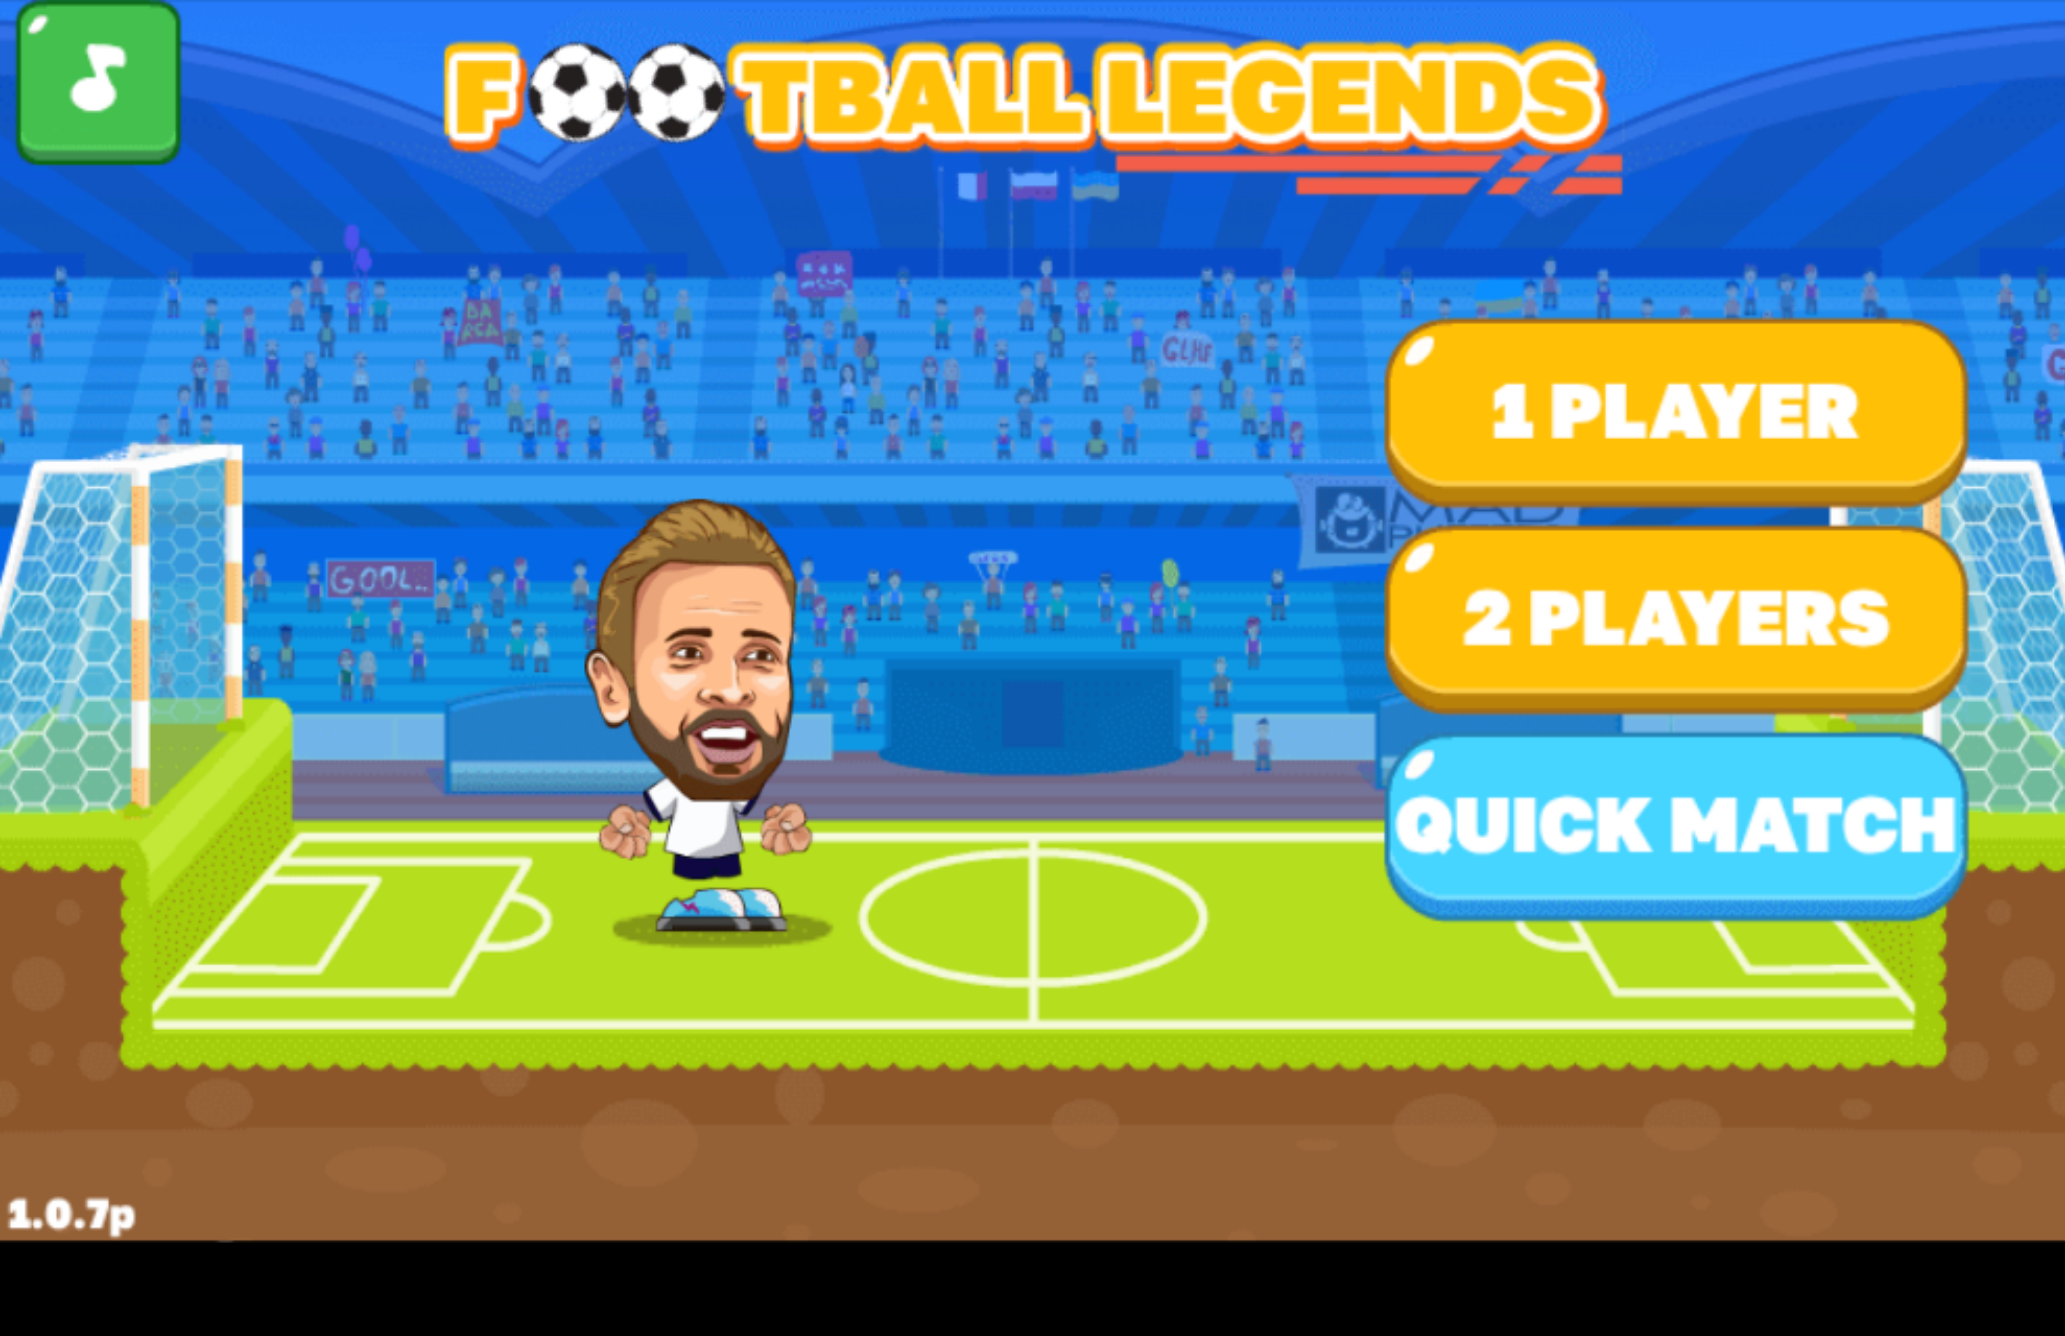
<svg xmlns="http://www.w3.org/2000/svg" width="2065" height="1336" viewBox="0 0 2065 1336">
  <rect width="100%" height="100%" fill="#000"/>
  <image x="0" y="0" width="2065" height="1243" href="img/1.png"/>
</svg>
